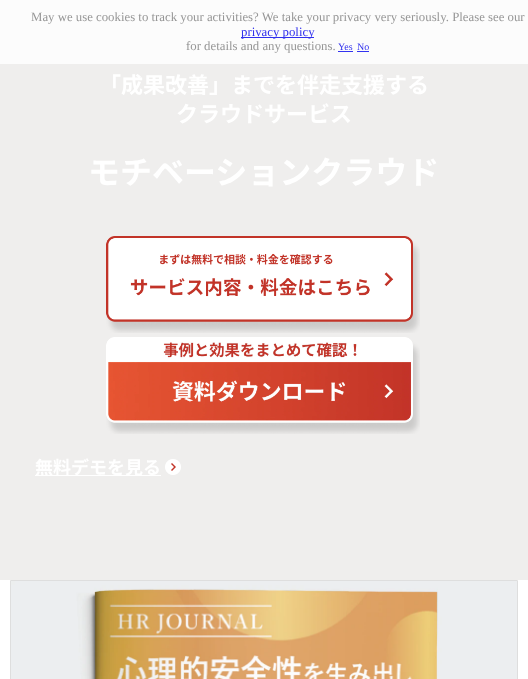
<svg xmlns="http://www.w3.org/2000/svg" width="528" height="679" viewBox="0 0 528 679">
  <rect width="100%" height="100%" fill="#fff"/>
  <path d="M0 0h528v580H0z" fill="#efeeed"/>
  <path d="M0 0h528v64H0z" fill="#ffffffcc"/>
  <path d="M241 37h73v1H241z" fill="#3030ee"/>
  <path d="M338 51h15v1H338z" fill="#0000eecc"/>
  <path d="M357 51h12v1H357z" fill="#0000eecc"/>
  <image x="106" y="236" width="314" height="97" href="img/1.png"/>
  <image x="106" y="337" width="314" height="97" href="img/2.png"/>
  <path d="M35 475h126v1H35z" fill="#fff"/>
  <image x="165" y="459" width="16" height="16" href="img/3.png"/>
  <path d="M10.5 580.5h507v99H10.5z" fill="none" stroke="#dedede"/>
  <image x="11" y="581" width="506" height="98" href="img/4.png"/>
  <text x="31" y="21" font-family="Liberation Serif" font-size="12.8" fill="#969696">May we use cookies to track your activities? We take your privacy very seriously. Please see our</text>
  <text x="241" y="36" font-family="Liberation Serif" font-size="12.8" fill="#3030ee">privacy policy</text>
  <text x="186" y="50" font-family="Liberation Serif" font-size="12.8" fill="#969696">for details and any questions.</text>
  <g font-family="Liberation Serif" font-size="10" fill="#3030ee">
    <text x="338" y="50">Yes</text>
    <text x="357" y="50">No</text>
  </g>
  <text x="99" y="93" font-family="Noto Sans JP" font-size="22" font-weight="bold" fill="#fff">「成果改善」までを伴走支援する</text>
  <text x="176" y="122" font-family="'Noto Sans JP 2'" font-size="22" font-weight="bold" fill="#fff">クラウドサービス</text>
  <text x="88" y="184" font-family="'Noto Sans JP 2'" font-size="32" font-weight="bold" fill="#fff">モチベーションクラウド</text>
  <text x="35" y="474" font-family="'Noto Sans JP 2'" font-size="18" font-weight="bold" fill="#fff">無料デモを見る</text>
</svg>
